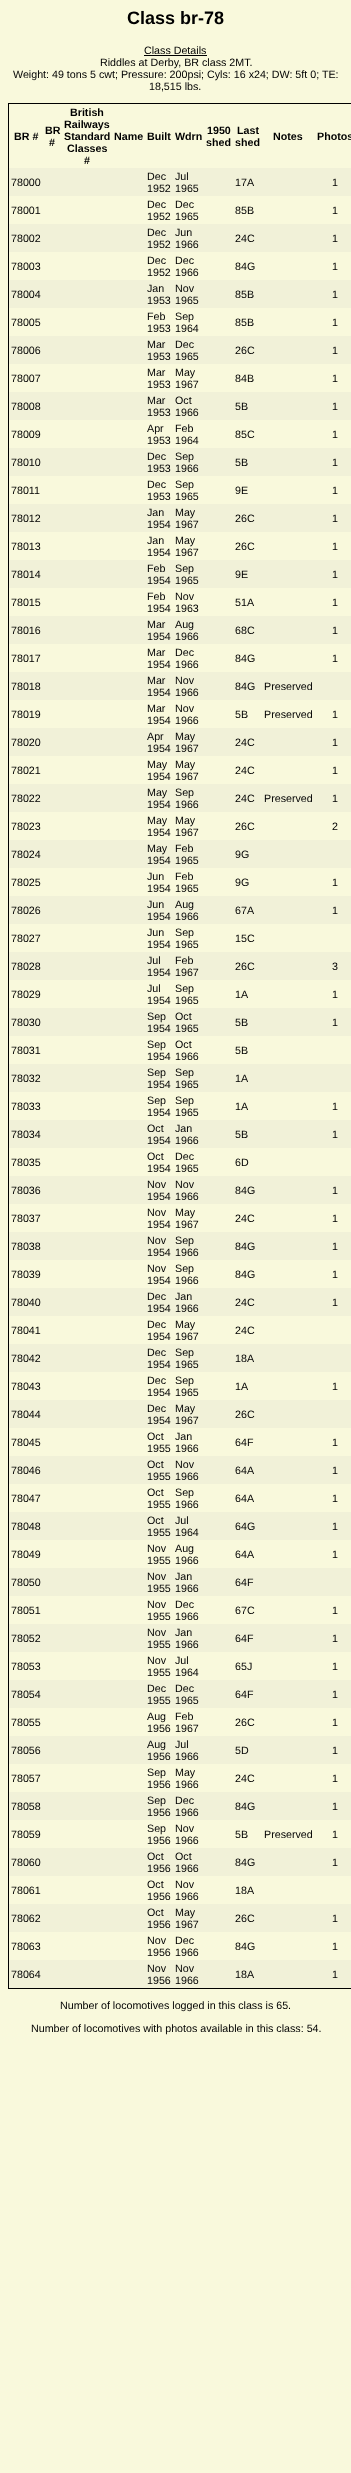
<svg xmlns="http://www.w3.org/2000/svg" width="351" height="2473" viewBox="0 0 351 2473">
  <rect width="100%" height="100%" fill="#f9f9dc"/>
  <path d="M144 55h63v1H144z" fill="#000"/>
  <path d="M8 103h343v1H8z" fill="#000"/>
  <path d="M8 1988h343v1H8z" fill="#000"/>
  <path d="M8 103h1v1886H8z" fill="#000"/>
  <path d="M9 168h342v28H9z" fill="#f1f1d8"/>
  <path d="M9 224h342v28H9z" fill="#f1f1d8"/>
  <path d="M9 280h342v28H9z" fill="#f1f1d8"/>
  <path d="M9 336h342v28H9z" fill="#f1f1d8"/>
  <path d="M9 392h342v28H9z" fill="#f1f1d8"/>
  <path d="M9 448h342v28H9z" fill="#f1f1d8"/>
  <path d="M9 504h342v28H9z" fill="#f1f1d8"/>
  <path d="M9 560h342v28H9z" fill="#f1f1d8"/>
  <path d="M9 616h342v28H9z" fill="#f1f1d8"/>
  <path d="M9 672h342v28H9z" fill="#f1f1d8"/>
  <path d="M9 728h342v28H9z" fill="#f1f1d8"/>
  <path d="M9 784h342v28H9z" fill="#f1f1d8"/>
  <path d="M9 840h342v28H9z" fill="#f1f1d8"/>
  <path d="M9 896h342v28H9z" fill="#f1f1d8"/>
  <path d="M9 952h342v28H9z" fill="#f1f1d8"/>
  <path d="M9 1008h342v28H9z" fill="#f1f1d8"/>
  <path d="M9 1064h342v28H9z" fill="#f1f1d8"/>
  <path d="M9 1120h342v28H9z" fill="#f1f1d8"/>
  <path d="M9 1176h342v28H9z" fill="#f1f1d8"/>
  <path d="M9 1232h342v28H9z" fill="#f1f1d8"/>
  <path d="M9 1288h342v28H9z" fill="#f1f1d8"/>
  <path d="M9 1344h342v28H9z" fill="#f1f1d8"/>
  <path d="M9 1400h342v28H9z" fill="#f1f1d8"/>
  <path d="M9 1456h342v28H9z" fill="#f1f1d8"/>
  <path d="M9 1512h342v28H9z" fill="#f1f1d8"/>
  <path d="M9 1568h342v28H9z" fill="#f1f1d8"/>
  <path d="M9 1624h342v28H9z" fill="#f1f1d8"/>
  <path d="M9 1680h342v28H9z" fill="#f1f1d8"/>
  <path d="M9 1736h342v28H9z" fill="#f1f1d8"/>
  <path d="M9 1792h342v28H9z" fill="#f1f1d8"/>
  <path d="M9 1848h342v28H9z" fill="#f1f1d8"/>
  <path d="M9 1904h342v28H9z" fill="#f1f1d8"/>
  <path d="M9 1960h342v28H9z" fill="#f1f1d8"/>
  <text x="127" y="24" font-family="Liberation Sans" font-size="18" font-weight="bold" fill="#000">Class br-78</text>
  <g font-family="Liberation Sans" font-size="10.7" fill="#000">
    <text x="144" y="54">Class Details</text>
    <text x="100" y="66">Riddles at Derby, BR class 2MT.</text>
    <text x="13" y="78">Weight: 49 tons 5 cwt; Pressure: 200psi; Cyls: 16 x24; DW: 5ft 0; TE:</text>
    <text x="149" y="90">18,515 lbs.</text>
  </g>
  <g font-family="Liberation Sans" font-size="10.7" font-weight="bold" fill="#000">
    <text x="14" y="140">BR #</text>
    <text x="45" y="134">BR</text>
    <text x="49" y="146">#</text>
    <text x="70" y="116">British</text>
    <text x="64" y="128">Railways</text>
    <text x="64" y="140">Standard</text>
    <text x="67" y="152">Classes</text>
    <text x="84" y="164">#</text>
    <text x="114" y="140">Name</text>
    <text x="147" y="140">Built</text>
    <text x="175" y="140">Wdrn</text>
    <text x="207" y="134">1950</text>
    <text x="206" y="146">shed</text>
    <text x="237" y="134">Last</text>
    <text x="235" y="146">shed</text>
    <text x="273" y="140">Notes</text>
    <text x="317" y="140">Photos</text>
  </g>
  <g font-family="Liberation Sans" font-size="10.7" fill="#000">
    <text x="11" y="186">78000</text>
    <text x="147" y="180">Dec</text>
    <text x="147" y="192">1952</text>
    <text x="175" y="180">Jul</text>
    <text x="175" y="192">1965</text>
    <text x="235" y="186">17A</text>
    <text x="332" y="186">1</text>
    <text x="11" y="214">78001</text>
    <text x="147" y="208">Dec</text>
    <text x="147" y="220">1952</text>
    <text x="175" y="208">Dec</text>
    <text x="175" y="220">1965</text>
    <text x="235" y="214">85B</text>
    <text x="332" y="214">1</text>
    <text x="11" y="242">78002</text>
    <text x="147" y="236">Dec</text>
    <text x="147" y="248">1952</text>
    <text x="175" y="236">Jun</text>
    <text x="175" y="248">1966</text>
    <text x="235" y="242">24C</text>
    <text x="332" y="242">1</text>
    <text x="11" y="270">78003</text>
    <text x="147" y="264">Dec</text>
    <text x="147" y="276">1952</text>
    <text x="175" y="264">Dec</text>
    <text x="175" y="276">1966</text>
    <text x="235" y="270">84G</text>
    <text x="332" y="270">1</text>
    <text x="11" y="298">78004</text>
    <text x="147" y="292">Jan</text>
    <text x="147" y="304">1953</text>
    <text x="175" y="292">Nov</text>
    <text x="175" y="304">1965</text>
    <text x="235" y="298">85B</text>
    <text x="332" y="298">1</text>
    <text x="11" y="326">78005</text>
    <text x="147" y="320">Feb</text>
    <text x="147" y="332">1953</text>
    <text x="175" y="320">Sep</text>
    <text x="175" y="332">1964</text>
    <text x="235" y="326">85B</text>
    <text x="332" y="326">1</text>
    <text x="11" y="354">78006</text>
    <text x="147" y="348">Mar</text>
    <text x="147" y="360">1953</text>
    <text x="175" y="348">Dec</text>
    <text x="175" y="360">1965</text>
    <text x="235" y="354">26C</text>
    <text x="332" y="354">1</text>
    <text x="11" y="382">78007</text>
    <text x="147" y="376">Mar</text>
    <text x="147" y="388">1953</text>
    <text x="175" y="376">May</text>
    <text x="175" y="388">1967</text>
    <text x="235" y="382">84B</text>
    <text x="332" y="382">1</text>
    <text x="11" y="410">78008</text>
    <text x="147" y="404">Mar</text>
    <text x="147" y="416">1953</text>
    <text x="175" y="404">Oct</text>
    <text x="175" y="416">1966</text>
    <text x="235" y="410">5B</text>
    <text x="332" y="410">1</text>
    <text x="11" y="438">78009</text>
    <text x="147" y="432">Apr</text>
    <text x="147" y="444">1953</text>
    <text x="175" y="432">Feb</text>
    <text x="175" y="444">1964</text>
    <text x="235" y="438">85C</text>
    <text x="332" y="438">1</text>
    <text x="11" y="466">78010</text>
    <text x="147" y="460">Dec</text>
    <text x="147" y="472">1953</text>
    <text x="175" y="460">Sep</text>
    <text x="175" y="472">1966</text>
    <text x="235" y="466">5B</text>
    <text x="332" y="466">1</text>
    <text x="11" y="494">78011</text>
    <text x="147" y="488">Dec</text>
    <text x="147" y="500">1953</text>
    <text x="175" y="488">Sep</text>
    <text x="175" y="500">1965</text>
    <text x="235" y="494">9E</text>
    <text x="332" y="494">1</text>
    <text x="11" y="522">78012</text>
    <text x="147" y="516">Jan</text>
    <text x="147" y="528">1954</text>
    <text x="175" y="516">May</text>
    <text x="175" y="528">1967</text>
    <text x="235" y="522">26C</text>
    <text x="332" y="522">1</text>
    <text x="11" y="550">78013</text>
    <text x="147" y="544">Jan</text>
    <text x="147" y="556">1954</text>
    <text x="175" y="544">May</text>
    <text x="175" y="556">1967</text>
    <text x="235" y="550">26C</text>
    <text x="332" y="550">1</text>
    <text x="11" y="578">78014</text>
    <text x="147" y="572">Feb</text>
    <text x="147" y="584">1954</text>
    <text x="175" y="572">Sep</text>
    <text x="175" y="584">1965</text>
    <text x="235" y="578">9E</text>
    <text x="332" y="578">1</text>
    <text x="11" y="606">78015</text>
    <text x="147" y="600">Feb</text>
    <text x="147" y="612">1954</text>
    <text x="175" y="600">Nov</text>
    <text x="175" y="612">1963</text>
    <text x="235" y="606">51A</text>
    <text x="332" y="606">1</text>
    <text x="11" y="634">78016</text>
    <text x="147" y="628">Mar</text>
    <text x="147" y="640">1954</text>
    <text x="175" y="628">Aug</text>
    <text x="175" y="640">1966</text>
    <text x="235" y="634">68C</text>
    <text x="332" y="634">1</text>
    <text x="11" y="662">78017</text>
    <text x="147" y="656">Mar</text>
    <text x="147" y="668">1954</text>
    <text x="175" y="656">Dec</text>
    <text x="175" y="668">1966</text>
    <text x="235" y="662">84G</text>
    <text x="332" y="662">1</text>
    <text x="11" y="690">78018</text>
    <text x="147" y="684">Mar</text>
    <text x="147" y="696">1954</text>
    <text x="175" y="684">Nov</text>
    <text x="175" y="696">1966</text>
    <text x="235" y="690">84G</text>
    <text x="264" y="690">Preserved</text>
    <text x="11" y="718">78019</text>
    <text x="147" y="712">Mar</text>
    <text x="147" y="724">1954</text>
    <text x="175" y="712">Nov</text>
    <text x="175" y="724">1966</text>
    <text x="235" y="718">5B</text>
    <text x="264" y="718">Preserved</text>
    <text x="332" y="718">1</text>
    <text x="11" y="746">78020</text>
    <text x="147" y="740">Apr</text>
    <text x="147" y="752">1954</text>
    <text x="175" y="740">May</text>
    <text x="175" y="752">1967</text>
    <text x="235" y="746">24C</text>
    <text x="332" y="746">1</text>
    <text x="11" y="774">78021</text>
    <text x="147" y="768">May</text>
    <text x="147" y="780">1954</text>
    <text x="175" y="768">May</text>
    <text x="175" y="780">1967</text>
    <text x="235" y="774">24C</text>
    <text x="332" y="774">1</text>
    <text x="11" y="802">78022</text>
    <text x="147" y="796">May</text>
    <text x="147" y="808">1954</text>
    <text x="175" y="796">Sep</text>
    <text x="175" y="808">1966</text>
    <text x="235" y="802">24C</text>
    <text x="264" y="802">Preserved</text>
    <text x="332" y="802">1</text>
    <text x="11" y="830">78023</text>
    <text x="147" y="824">May</text>
    <text x="147" y="836">1954</text>
    <text x="175" y="824">May</text>
    <text x="175" y="836">1967</text>
    <text x="235" y="830">26C</text>
    <text x="332" y="830">2</text>
    <text x="11" y="858">78024</text>
    <text x="147" y="852">May</text>
    <text x="147" y="864">1954</text>
    <text x="175" y="852">Feb</text>
    <text x="175" y="864">1965</text>
    <text x="235" y="858">9G</text>
    <text x="11" y="886">78025</text>
    <text x="147" y="880">Jun</text>
    <text x="147" y="892">1954</text>
    <text x="175" y="880">Feb</text>
    <text x="175" y="892">1965</text>
    <text x="235" y="886">9G</text>
    <text x="332" y="886">1</text>
    <text x="11" y="914">78026</text>
    <text x="147" y="908">Jun</text>
    <text x="147" y="920">1954</text>
    <text x="175" y="908">Aug</text>
    <text x="175" y="920">1966</text>
    <text x="235" y="914">67A</text>
    <text x="332" y="914">1</text>
    <text x="11" y="942">78027</text>
    <text x="147" y="936">Jun</text>
    <text x="147" y="948">1954</text>
    <text x="175" y="936">Sep</text>
    <text x="175" y="948">1965</text>
    <text x="235" y="942">15C</text>
    <text x="11" y="970">78028</text>
    <text x="147" y="964">Jul</text>
    <text x="147" y="976">1954</text>
    <text x="175" y="964">Feb</text>
    <text x="175" y="976">1967</text>
    <text x="235" y="970">26C</text>
    <text x="332" y="970">3</text>
    <text x="11" y="998">78029</text>
    <text x="147" y="992">Jul</text>
    <text x="147" y="1004">1954</text>
    <text x="175" y="992">Sep</text>
    <text x="175" y="1004">1965</text>
    <text x="235" y="998">1A</text>
    <text x="332" y="998">1</text>
    <text x="11" y="1026">78030</text>
    <text x="147" y="1020">Sep</text>
    <text x="147" y="1032">1954</text>
    <text x="175" y="1020">Oct</text>
    <text x="175" y="1032">1965</text>
    <text x="235" y="1026">5B</text>
    <text x="332" y="1026">1</text>
    <text x="11" y="1054">78031</text>
    <text x="147" y="1048">Sep</text>
    <text x="147" y="1060">1954</text>
    <text x="175" y="1048">Oct</text>
    <text x="175" y="1060">1966</text>
    <text x="235" y="1054">5B</text>
    <text x="11" y="1082">78032</text>
    <text x="147" y="1076">Sep</text>
    <text x="147" y="1088">1954</text>
    <text x="175" y="1076">Sep</text>
    <text x="175" y="1088">1965</text>
    <text x="235" y="1082">1A</text>
    <text x="11" y="1110">78033</text>
    <text x="147" y="1104">Sep</text>
    <text x="147" y="1116">1954</text>
    <text x="175" y="1104">Sep</text>
    <text x="175" y="1116">1965</text>
    <text x="235" y="1110">1A</text>
    <text x="332" y="1110">1</text>
    <text x="11" y="1138">78034</text>
    <text x="147" y="1132">Oct</text>
    <text x="147" y="1144">1954</text>
    <text x="175" y="1132">Jan</text>
    <text x="175" y="1144">1966</text>
    <text x="235" y="1138">5B</text>
    <text x="332" y="1138">1</text>
    <text x="11" y="1166">78035</text>
    <text x="147" y="1160">Oct</text>
    <text x="147" y="1172">1954</text>
    <text x="175" y="1160">Dec</text>
    <text x="175" y="1172">1965</text>
    <text x="235" y="1166">6D</text>
    <text x="11" y="1194">78036</text>
    <text x="147" y="1188">Nov</text>
    <text x="147" y="1200">1954</text>
    <text x="175" y="1188">Nov</text>
    <text x="175" y="1200">1966</text>
    <text x="235" y="1194">84G</text>
    <text x="332" y="1194">1</text>
    <text x="11" y="1222">78037</text>
    <text x="147" y="1216">Nov</text>
    <text x="147" y="1228">1954</text>
    <text x="175" y="1216">May</text>
    <text x="175" y="1228">1967</text>
    <text x="235" y="1222">24C</text>
    <text x="332" y="1222">1</text>
    <text x="11" y="1250">78038</text>
    <text x="147" y="1244">Nov</text>
    <text x="147" y="1256">1954</text>
    <text x="175" y="1244">Sep</text>
    <text x="175" y="1256">1966</text>
    <text x="235" y="1250">84G</text>
    <text x="332" y="1250">1</text>
    <text x="11" y="1278">78039</text>
    <text x="147" y="1272">Nov</text>
    <text x="147" y="1284">1954</text>
    <text x="175" y="1272">Sep</text>
    <text x="175" y="1284">1966</text>
    <text x="235" y="1278">84G</text>
    <text x="332" y="1278">1</text>
    <text x="11" y="1306">78040</text>
    <text x="147" y="1300">Dec</text>
    <text x="147" y="1312">1954</text>
    <text x="175" y="1300">Jan</text>
    <text x="175" y="1312">1966</text>
    <text x="235" y="1306">24C</text>
    <text x="332" y="1306">1</text>
    <text x="11" y="1334">78041</text>
    <text x="147" y="1328">Dec</text>
    <text x="147" y="1340">1954</text>
    <text x="175" y="1328">May</text>
    <text x="175" y="1340">1967</text>
    <text x="235" y="1334">24C</text>
    <text x="11" y="1362">78042</text>
    <text x="147" y="1356">Dec</text>
    <text x="147" y="1368">1954</text>
    <text x="175" y="1356">Sep</text>
    <text x="175" y="1368">1965</text>
    <text x="235" y="1362">18A</text>
    <text x="11" y="1390">78043</text>
    <text x="147" y="1384">Dec</text>
    <text x="147" y="1396">1954</text>
    <text x="175" y="1384">Sep</text>
    <text x="175" y="1396">1965</text>
    <text x="235" y="1390">1A</text>
    <text x="332" y="1390">1</text>
    <text x="11" y="1418">78044</text>
    <text x="147" y="1412">Dec</text>
    <text x="147" y="1424">1954</text>
    <text x="175" y="1412">May</text>
    <text x="175" y="1424">1967</text>
    <text x="235" y="1418">26C</text>
    <text x="11" y="1446">78045</text>
    <text x="147" y="1440">Oct</text>
    <text x="147" y="1452">1955</text>
    <text x="175" y="1440">Jan</text>
    <text x="175" y="1452">1966</text>
    <text x="235" y="1446">64F</text>
    <text x="332" y="1446">1</text>
    <text x="11" y="1474">78046</text>
    <text x="147" y="1468">Oct</text>
    <text x="147" y="1480">1955</text>
    <text x="175" y="1468">Nov</text>
    <text x="175" y="1480">1966</text>
    <text x="235" y="1474">64A</text>
    <text x="332" y="1474">1</text>
    <text x="11" y="1502">78047</text>
    <text x="147" y="1496">Oct</text>
    <text x="147" y="1508">1955</text>
    <text x="175" y="1496">Sep</text>
    <text x="175" y="1508">1966</text>
    <text x="235" y="1502">64A</text>
    <text x="332" y="1502">1</text>
    <text x="11" y="1530">78048</text>
    <text x="147" y="1524">Oct</text>
    <text x="147" y="1536">1955</text>
    <text x="175" y="1524">Jul</text>
    <text x="175" y="1536">1964</text>
    <text x="235" y="1530">64G</text>
    <text x="332" y="1530">1</text>
    <text x="11" y="1558">78049</text>
    <text x="147" y="1552">Nov</text>
    <text x="147" y="1564">1955</text>
    <text x="175" y="1552">Aug</text>
    <text x="175" y="1564">1966</text>
    <text x="235" y="1558">64A</text>
    <text x="332" y="1558">1</text>
    <text x="11" y="1586">78050</text>
    <text x="147" y="1580">Nov</text>
    <text x="147" y="1592">1955</text>
    <text x="175" y="1580">Jan</text>
    <text x="175" y="1592">1966</text>
    <text x="235" y="1586">64F</text>
    <text x="11" y="1614">78051</text>
    <text x="147" y="1608">Nov</text>
    <text x="147" y="1620">1955</text>
    <text x="175" y="1608">Dec</text>
    <text x="175" y="1620">1966</text>
    <text x="235" y="1614">67C</text>
    <text x="332" y="1614">1</text>
    <text x="11" y="1642">78052</text>
    <text x="147" y="1636">Nov</text>
    <text x="147" y="1648">1955</text>
    <text x="175" y="1636">Jan</text>
    <text x="175" y="1648">1966</text>
    <text x="235" y="1642">64F</text>
    <text x="332" y="1642">1</text>
    <text x="11" y="1670">78053</text>
    <text x="147" y="1664">Nov</text>
    <text x="147" y="1676">1955</text>
    <text x="175" y="1664">Jul</text>
    <text x="175" y="1676">1964</text>
    <text x="235" y="1670">65J</text>
    <text x="332" y="1670">1</text>
    <text x="11" y="1698">78054</text>
    <text x="147" y="1692">Dec</text>
    <text x="147" y="1704">1955</text>
    <text x="175" y="1692">Dec</text>
    <text x="175" y="1704">1965</text>
    <text x="235" y="1698">64F</text>
    <text x="332" y="1698">1</text>
    <text x="11" y="1726">78055</text>
    <text x="147" y="1720">Aug</text>
    <text x="147" y="1732">1956</text>
    <text x="175" y="1720">Feb</text>
    <text x="175" y="1732">1967</text>
    <text x="235" y="1726">26C</text>
    <text x="332" y="1726">1</text>
    <text x="11" y="1754">78056</text>
    <text x="147" y="1748">Aug</text>
    <text x="147" y="1760">1956</text>
    <text x="175" y="1748">Jul</text>
    <text x="175" y="1760">1966</text>
    <text x="235" y="1754">5D</text>
    <text x="332" y="1754">1</text>
    <text x="11" y="1782">78057</text>
    <text x="147" y="1776">Sep</text>
    <text x="147" y="1788">1956</text>
    <text x="175" y="1776">May</text>
    <text x="175" y="1788">1966</text>
    <text x="235" y="1782">24C</text>
    <text x="332" y="1782">1</text>
    <text x="11" y="1810">78058</text>
    <text x="147" y="1804">Sep</text>
    <text x="147" y="1816">1956</text>
    <text x="175" y="1804">Dec</text>
    <text x="175" y="1816">1966</text>
    <text x="235" y="1810">84G</text>
    <text x="332" y="1810">1</text>
    <text x="11" y="1838">78059</text>
    <text x="147" y="1832">Sep</text>
    <text x="147" y="1844">1956</text>
    <text x="175" y="1832">Nov</text>
    <text x="175" y="1844">1966</text>
    <text x="235" y="1838">5B</text>
    <text x="264" y="1838">Preserved</text>
    <text x="332" y="1838">1</text>
    <text x="11" y="1866">78060</text>
    <text x="147" y="1860">Oct</text>
    <text x="147" y="1872">1956</text>
    <text x="175" y="1860">Oct</text>
    <text x="175" y="1872">1966</text>
    <text x="235" y="1866">84G</text>
    <text x="332" y="1866">1</text>
    <text x="11" y="1894">78061</text>
    <text x="147" y="1888">Oct</text>
    <text x="147" y="1900">1956</text>
    <text x="175" y="1888">Nov</text>
    <text x="175" y="1900">1966</text>
    <text x="235" y="1894">18A</text>
    <text x="11" y="1922">78062</text>
    <text x="147" y="1916">Oct</text>
    <text x="147" y="1928">1956</text>
    <text x="175" y="1916">May</text>
    <text x="175" y="1928">1967</text>
    <text x="235" y="1922">26C</text>
    <text x="332" y="1922">1</text>
    <text x="11" y="1950">78063</text>
    <text x="147" y="1944">Nov</text>
    <text x="147" y="1956">1956</text>
    <text x="175" y="1944">Dec</text>
    <text x="175" y="1956">1966</text>
    <text x="235" y="1950">84G</text>
    <text x="332" y="1950">1</text>
    <text x="11" y="1978">78064</text>
    <text x="147" y="1972">Nov</text>
    <text x="147" y="1984">1956</text>
    <text x="175" y="1972">Nov</text>
    <text x="175" y="1984">1966</text>
    <text x="235" y="1978">18A</text>
    <text x="332" y="1978">1</text>
    <text x="60" y="2009">Number of locomotives logged in this class is 65.</text>
    <text x="31" y="2032">Number of locomotives with photos available in this class: 54.</text>
  </g>
</svg>
